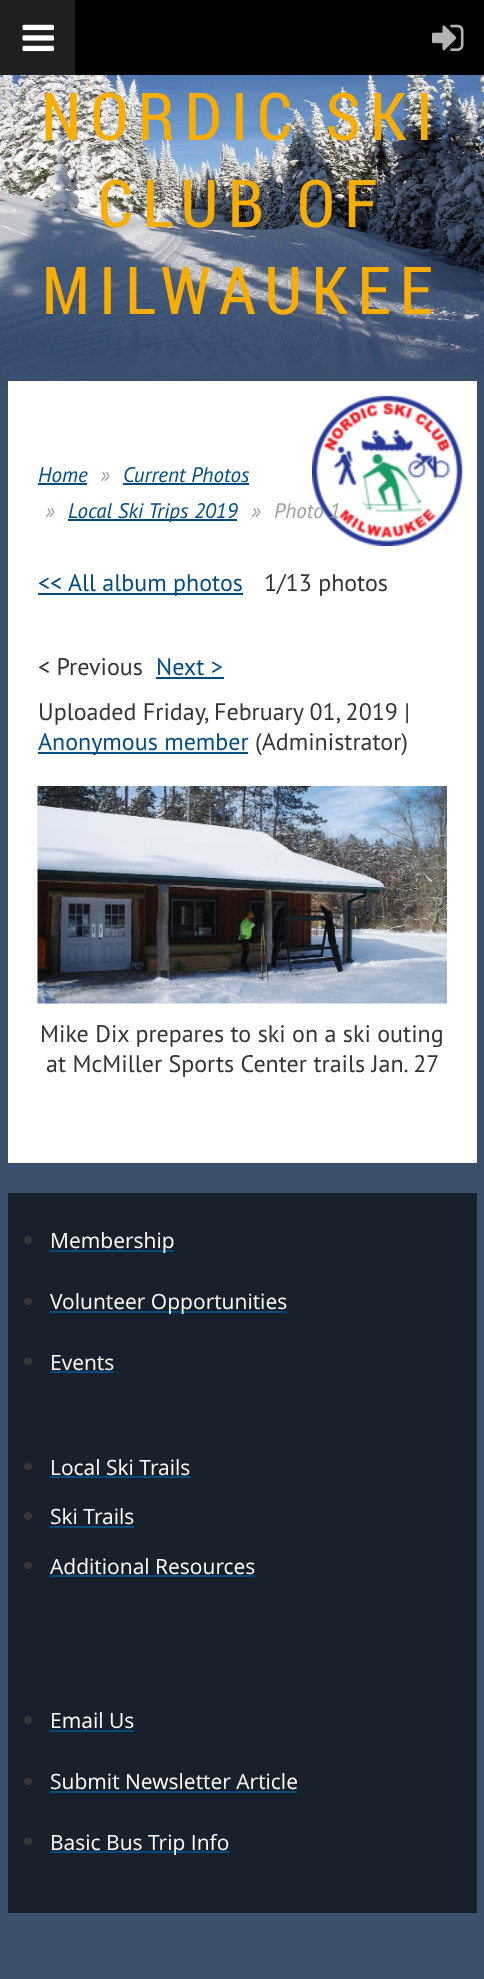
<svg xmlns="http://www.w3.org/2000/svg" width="484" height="1979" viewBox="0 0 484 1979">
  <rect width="100%" height="100%" fill="#3b506d"/>
  <image x="0" y="75" width="484" height="313" href="img/1.png"/>
  <path d="M75 0h409v75H75z" fill="#000"/>
  <path d="M0 0h75v75H0z" fill="#1f1f1f"/>
  <image x="22" y="24" width="32" height="28" href="img/2.png"/>
  <image x="432" y="24" width="32" height="27" href="img/3.png"/>
  <path d="M8 381h469v782H8z" fill="#fff"/>
  <image x="312" y="395" width="151" height="151" href="img/4.png"/>
  <path d="M38 483h49v2H38z" fill="#004b80"/>
  <path d="M123 483h126v2H123z" fill="#004b80"/>
  <path d="M68 519h169v2H68z" fill="#004b80"/>
  <path d="M38 593h205v2H38z" fill="#004b80"/>
  <path d="M156 677h68v2H156z" fill="#004b80"/>
  <path d="M38 752h210v2H38z" fill="#004b80"/>
  <image x="37" y="786" width="410" height="218" href="img/5.png"/>
  <path d="M8 1193h469v720H8z" fill="#18202c"/>
  <circle cx="28" cy="1240" r="4" fill="#373737"/>
  <path d="M50 1250h124v2H50z" fill="#004b80"/>
  <rect x="24" y="1298" width="8" height="7" rx="3.5" fill="#373737"/>
  <path d="M50 1311h237v2H50z" fill="#004b80"/>
  <rect x="24" y="1358" width="8" height="7" rx="3.5" fill="#373737"/>
  <path d="M50 1371h64v2H50z" fill="#004b80"/>
  <rect x="24" y="1463" width="8" height="7" rx="3.5" fill="#373737"/>
  <path d="M50 1476h141v2H50z" fill="#004b80"/>
  <circle cx="28" cy="1516" r="4" fill="#373737"/>
  <path d="M50 1526h84v2H50z" fill="#004b80"/>
  <rect x="24" y="1562" width="8" height="7" rx="3.5" fill="#373737"/>
  <path d="M50 1575h205v2H50z" fill="#004b80"/>
  <circle cx="28" cy="1720" r="4" fill="#373737"/>
  <path d="M50 1730h84v2H50z" fill="#004b80"/>
  <rect x="24" y="1778" width="8" height="7" rx="3.5" fill="#373737"/>
  <path d="M50 1791h247v2H50z" fill="#004b80"/>
  <rect x="24" y="1838" width="8" height="7" rx="3.5" fill="#373737"/>
  <path d="M50 1851h180v2H50z" fill="#004b80"/>
  <g font-family="Roboto Condensed" font-size="66" letter-spacing="9.5" fill="#f8ad02">
    <text x="41" y="140">NORDIC SKI</text>
    <text x="98" y="227">CLUB OF</text>
    <text x="42" y="314">MILWAUKEE</text>
  </g>
  <text x="38" y="482" font-family="PT Sans" font-size="21" font-style="italic" fill="#004b80">Home</text>
  <text x="100" y="482" font-family="PT Sans" font-size="21" font-style="italic" fill="#9da1a3">»</text>
  <text x="123" y="482" font-family="PT Sans" font-size="21" font-style="italic" fill="#004b80">Current Photos</text>
  <text x="45" y="518" font-family="PT Sans" font-size="21" font-style="italic" fill="#9da1a3">»</text>
  <text x="68" y="518" font-family="PT Sans" font-size="21" font-style="italic" fill="#004b80">Local Ski Trips 2019</text>
  <g font-family="PT Sans" font-size="21" font-style="italic" fill="#9da1a3">
    <text x="251" y="518">»</text>
    <text x="274" y="518">Photo 1</text>
  </g>
  <text x="38" y="591" font-family="PT Sans" font-size="24" fill="#004b80">&lt;&lt; All album photos</text>
  <g font-family="PT Sans" font-size="24" fill="#333">
    <text x="264" y="591">1/13 photos</text>
    <text x="38" y="675">&lt; Previous</text>
  </g>
  <text x="156" y="675" font-family="PT Sans" font-size="24" fill="#004b80">Next &gt;</text>
  <text x="38" y="720" font-family="PT Sans" font-size="24" fill="#333">Uploaded Friday, February 01, 2019 |</text>
  <text x="38" y="750" font-family="PT Sans" font-size="24" fill="#004b80">Anonymous member</text>
  <g font-family="PT Sans" font-size="24" fill="#333">
    <text x="255" y="750">(Administrator)</text>
    <text x="40" y="1042">Mike Dix prepares to ski on a ski outing</text>
    <text x="46" y="1072">at McMiller Sports Center trails Jan. 27</text>
  </g>
  <g font-family="Open Sans" font-size="21" fill="#fff">
    <text x="50" y="1248">Membership</text>
    <text x="50" y="1309">Volunteer Opportunities</text>
    <text x="50" y="1370">Events</text>
    <text x="50" y="1475">Local Ski Trails</text>
    <text x="50" y="1524">Ski Trails</text>
    <text x="50" y="1574">Additional Resources</text>
    <text x="50" y="1728">Email Us</text>
    <text x="50" y="1789">Submit Newsletter Article</text>
    <text x="50" y="1850">Basic Bus Trip Info</text>
  </g>
</svg>
